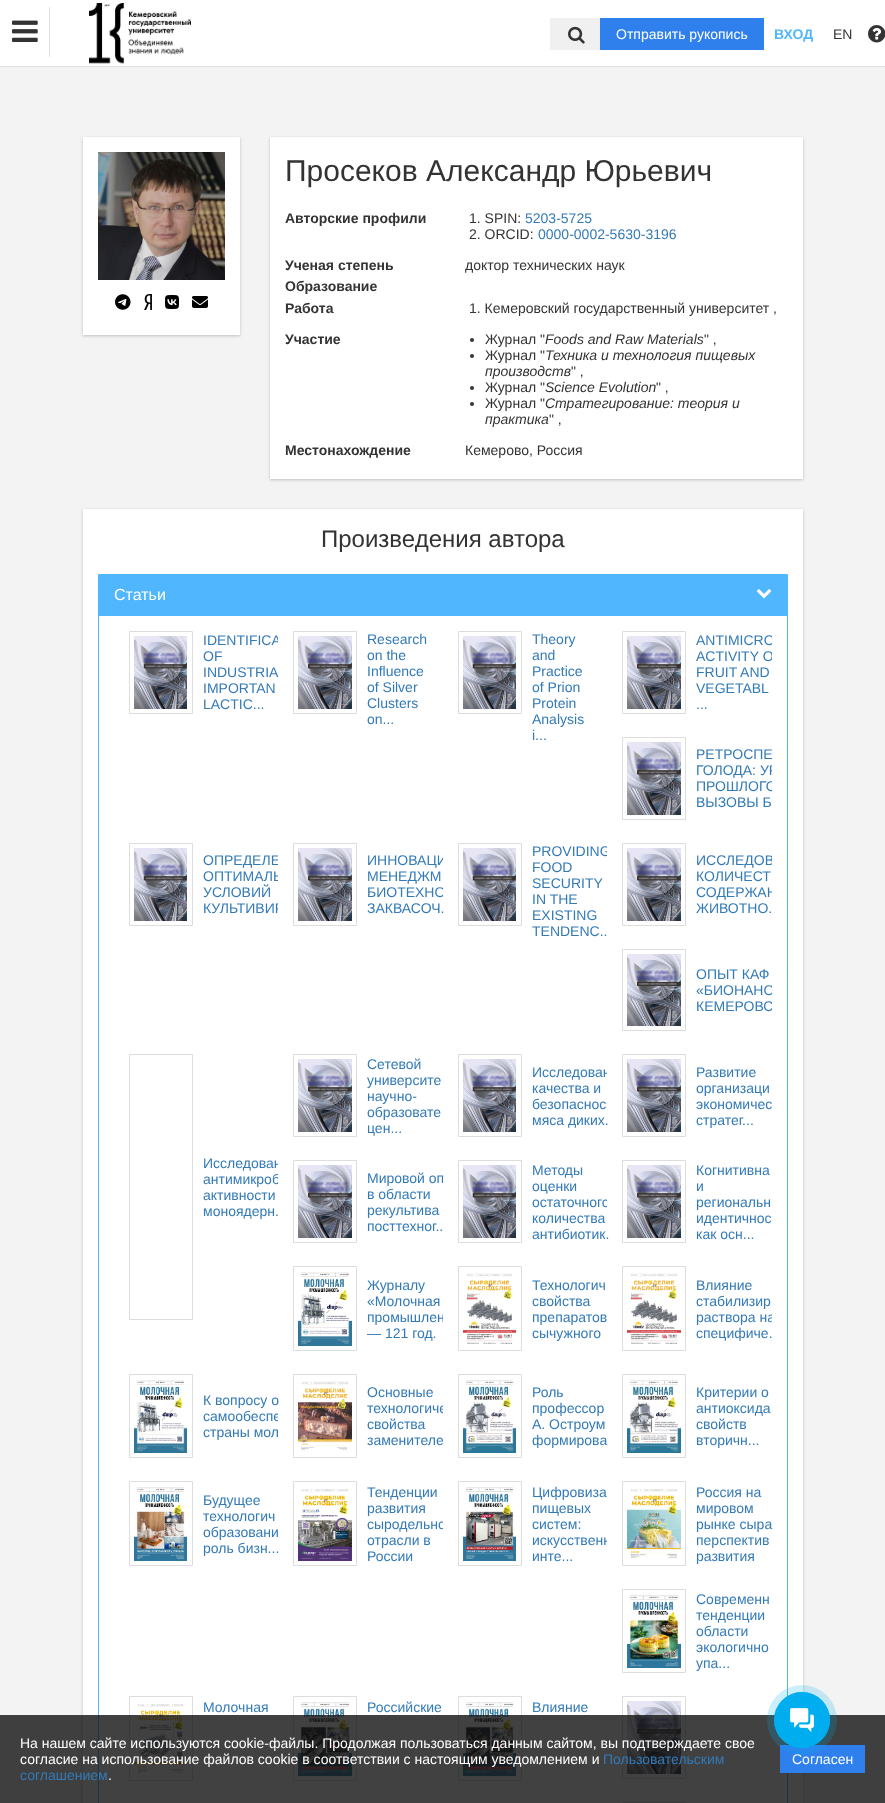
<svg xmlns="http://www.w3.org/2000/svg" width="885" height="1803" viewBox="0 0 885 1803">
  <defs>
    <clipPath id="clip1"><path d="M203 631h75v83H203z"/></clipPath>
    <clipPath id="clip2"><path d="M696 631h76v83H696z"/></clipPath>
    <clipPath id="clip3"><path d="M696 737h76v83H696z"/></clipPath>
    <clipPath id="clip4"><path d="M203 843h75v83H203z"/></clipPath>
    <clipPath id="clip5"><path d="M367 843h76v83H367z"/></clipPath>
    <clipPath id="clip6"><path d="M532 843h75v96H532z"/></clipPath>
    <clipPath id="clip7"><path d="M696 843h76v83H696z"/></clipPath>
    <clipPath id="clip8"><path d="M696 949h76v82H696z"/></clipPath>
    <clipPath id="clip9"><path d="M532 1054h75v83H532z"/></clipPath>
    <clipPath id="clip10"><path d="M203 1054h75v266H203z"/></clipPath>
    <clipPath id="clip11"><path d="M367 1160h76v83H367z"/></clipPath>
    <clipPath id="clip12"><path d="M532 1160h75v83H532z"/></clipPath>
    <clipPath id="clip13"><path d="M367 1266h76v85H367z"/></clipPath>
    <clipPath id="clip14"><path d="M696 1266h76v85H696z"/></clipPath>
    <clipPath id="clip15"><path d="M203 1374h75v84H203z"/></clipPath>
    <clipPath id="clip16"><path d="M367 1374h76v84H367z"/></clipPath>
    <clipPath id="clip17"><path d="M367 1481h76v85H367z"/></clipPath>
    <clipPath id="clip18"><path d="M532 1481h75v85H532z"/></clipPath>
  </defs>
  <rect width="100%" height="100%" fill="#f4f3f3"/>
  <path d="M0 0h885v66H0z" fill="#fff"/>
  <path d="M0 66h885v1H0z" fill="#dfdfdf"/>
  <path d="M49 7h1v50H49z" fill="#dfdfdf"/>
  <image x="12" y="20" width="26" height="22" href="img/1.png"/>
  <image x="89" y="3" width="102" height="61" href="img/2.png"/>
  <path d="M550 18h50v32H550z" fill="#f0f0f0"/>
  <image x="568" y="26" width="17" height="18" href="img/3.png"/>
  <path d="M600 18h164v32H600z" fill="#2f80ed"/>
  <image x="868" y="25" width="17" height="18" href="img/4.png"/>
  <path d="M83 138h157v198H83z" fill="#bfbfbf" filter="blur(1.5px)"/>
  <path d="M83 137h157v198H83z" fill="#fff"/>
  <image x="98" y="152" width="127" height="128" href="img/5.png"/>
  <image x="115" y="294" width="16" height="16" href="img/6.png"/>
  <image x="144" y="294" width="8" height="16" href="img/7.png"/>
  <image x="165" y="295" width="14" height="14" href="img/8.png"/>
  <image x="192" y="296" width="16" height="12" href="img/9.png"/>
  <path d="M270 138h533v342H270z" fill="#bfbfbf" filter="blur(1.5px)"/>
  <path d="M270 137h533v342H270z" fill="#fff"/>
  <circle cx="472" cy="340" r="2" fill="#333"/>
  <circle cx="472" cy="356" r="2" fill="#333"/>
  <circle cx="472" cy="388" r="2" fill="#333"/>
  <circle cx="472" cy="404" r="2" fill="#333"/>
  <path d="M83 510h720v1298H83z" fill="#bfbfbf" filter="blur(1.5px)"/>
  <path d="M83 509h720v1294H83z" fill="#fff"/>
  <path d="M98.5 574.5h689v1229H98.5z" fill="none" stroke="#50b7ff"/>
  <path d="M99 575h688v41H99z" fill="#50b7ff"/>
  <image x="756" y="589" width="16" height="10" href="img/10.png"/>
  <path d="M129.5 631.5h63v82H129.5z" fill="none" stroke="#ddd"/>
  <image x="134" y="636" width="53" height="73" href="img/11.png"/>
  <path d="M293.5 631.5h63v82H293.5z" fill="none" stroke="#ddd"/>
  <image x="298" y="636" width="54" height="73" href="img/12.png"/>
  <path d="M458.5 631.5h63v82H458.5z" fill="none" stroke="#ddd"/>
  <image x="463" y="636" width="53" height="73" href="img/13.png"/>
  <path d="M622.5 631.5h63v82H622.5z" fill="none" stroke="#ddd"/>
  <image x="627" y="636" width="54" height="73" href="img/14.png"/>
  <path d="M622.5 737.5h63v82H622.5z" fill="none" stroke="#ddd"/>
  <image x="627" y="742" width="54" height="73" href="img/14.png"/>
  <path d="M129.5 843.5h63v82H129.5z" fill="none" stroke="#ddd"/>
  <image x="134" y="848" width="53" height="73" href="img/11.png"/>
  <path d="M293.5 843.5h63v82H293.5z" fill="none" stroke="#ddd"/>
  <image x="298" y="848" width="54" height="73" href="img/12.png"/>
  <path d="M458.5 843.5h63v82H458.5z" fill="none" stroke="#ddd"/>
  <image x="463" y="848" width="53" height="73" href="img/13.png"/>
  <path d="M622.5 843.5h63v82H622.5z" fill="none" stroke="#ddd"/>
  <image x="627" y="848" width="54" height="73" href="img/14.png"/>
  <path d="M622.5 949.5h63v81H622.5z" fill="none" stroke="#ddd"/>
  <image x="627" y="954" width="54" height="72" href="img/15.png"/>
  <path d="M293.5 1054.5h63v82H293.5z" fill="none" stroke="#ddd"/>
  <image x="298" y="1059" width="54" height="73" href="img/12.png"/>
  <path d="M458.5 1054.5h63v82H458.5z" fill="none" stroke="#ddd"/>
  <image x="463" y="1059" width="53" height="73" href="img/13.png"/>
  <path d="M622.5 1054.5h63v82H622.5z" fill="none" stroke="#ddd"/>
  <image x="627" y="1059" width="54" height="73" href="img/14.png"/>
  <path d="M129.5 1054.5h63v265H129.5z" fill="none" stroke="#ddd"/>
  <path d="M293.5 1160.5h63v82H293.5z" fill="none" stroke="#ddd"/>
  <image x="298" y="1165" width="54" height="73" href="img/12.png"/>
  <path d="M458.5 1160.5h63v82H458.5z" fill="none" stroke="#ddd"/>
  <image x="463" y="1165" width="53" height="73" href="img/13.png"/>
  <path d="M622.5 1160.5h63v82H622.5z" fill="none" stroke="#ddd"/>
  <image x="627" y="1165" width="54" height="73" href="img/14.png"/>
  <path d="M293.5 1266.5h63v84H293.5z" fill="none" stroke="#ddd"/>
  <image x="298" y="1272" width="54" height="74" href="img/16.png"/>
  <path d="M458.5 1266.5h63v84H458.5z" fill="none" stroke="#ddd"/>
  <image x="463" y="1273" width="53" height="72" href="img/17.png"/>
  <path d="M622.5 1266.5h63v84H622.5z" fill="none" stroke="#ddd"/>
  <image x="627" y="1273" width="54" height="71" href="img/18.png"/>
  <path d="M129.5 1374.5h63v83H129.5z" fill="none" stroke="#ddd"/>
  <image x="134" y="1380" width="53" height="73" href="img/19.png"/>
  <path d="M293.5 1374.5h63v83H293.5z" fill="none" stroke="#ddd"/>
  <image x="298" y="1381" width="54" height="70" href="img/20.png"/>
  <path d="M458.5 1374.5h63v83H458.5z" fill="none" stroke="#ddd"/>
  <image x="463" y="1380" width="53" height="73" href="img/21.png"/>
  <path d="M622.5 1374.5h63v83H622.5z" fill="none" stroke="#ddd"/>
  <image x="627" y="1380" width="54" height="73" href="img/22.png"/>
  <path d="M129.5 1481.5h63v84H129.5z" fill="none" stroke="#ddd"/>
  <image x="134" y="1487" width="53" height="74" href="img/23.png"/>
  <path d="M293.5 1481.5h63v84H293.5z" fill="none" stroke="#ddd"/>
  <image x="298" y="1489" width="54" height="72" href="img/24.png"/>
  <path d="M458.5 1481.5h63v84H458.5z" fill="none" stroke="#ddd"/>
  <image x="463" y="1487" width="53" height="74" href="img/25.png"/>
  <path d="M622.5 1481.5h63v84H622.5z" fill="none" stroke="#ddd"/>
  <image x="627" y="1489" width="54" height="70" href="img/26.png"/>
  <path d="M622.5 1589.5h63v83H622.5z" fill="none" stroke="#ddd"/>
  <image x="627" y="1595" width="54" height="73" href="img/27.png"/>
  <path d="M129.5 1696.5h63v84H129.5z" fill="none" stroke="#ddd"/>
  <image x="134" y="1704" width="53" height="70" href="img/28.png"/>
  <path d="M293.5 1696.5h63v84H293.5z" fill="none" stroke="#ddd"/>
  <image x="298" y="1702" width="54" height="74" href="img/29.png"/>
  <path d="M458.5 1696.5h63v84H458.5z" fill="none" stroke="#ddd"/>
  <image x="463" y="1702" width="53" height="74" href="img/30.png"/>
  <path d="M622.5 1696.5h63v82H622.5z" fill="none" stroke="#ddd"/>
  <image x="627" y="1701" width="54" height="73" href="img/14.png"/>
  <path d="M622.5 1802.5h63v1H622.5z" fill="none" stroke="#ddd"/>
  <path d="M0 1715h885v88H0z" fill="#121212cc"/>
  <path d="M780 1745h85v28H780z" fill="#2f80ed"/>
  <text x="616" y="39" font-family="Liberation Sans" font-size="14" fill="#fff">Отправить рукопись</text>
  <text x="774" y="39" font-family="Liberation Sans" font-size="14" font-weight="bold" fill="#50b7ff">ВХОД</text>
  <text x="833" y="39" font-family="Liberation Sans" font-size="14" fill="#333">EN</text>
  <text x="285" y="181" font-family="Liberation Sans" font-size="30" fill="#333">Просеков Александр Юрьевич</text>
  <text x="285" y="223" font-family="Liberation Sans" font-size="14" font-weight="bold" fill="#333">Авторские профили</text>
  <text x="469" y="223" font-family="Liberation Sans" font-size="14" fill="#333">1. SPIN:</text>
  <text x="525" y="223" font-family="Liberation Sans" font-size="14" fill="#337ab7">5203-5725</text>
  <text x="469" y="239" font-family="Liberation Sans" font-size="14" fill="#333">2. ORCID:</text>
  <text x="538" y="239" font-family="Liberation Sans" font-size="14" fill="#337ab7">0000-0002-5630-3196</text>
  <text x="285" y="270" font-family="Liberation Sans" font-size="14" font-weight="bold" fill="#333">Ученая степень</text>
  <text x="465" y="270" font-family="Liberation Sans" font-size="14" fill="#333">доктор технических наук</text>
  <g font-family="Liberation Sans" font-size="14" font-weight="bold" fill="#333">
    <text x="285" y="291">Образование</text>
    <text x="285" y="313">Работа</text>
  </g>
  <text x="469" y="313" font-family="Liberation Sans" font-size="14" fill="#333">1. Кемеровский государственный университет ,</text>
  <text x="285" y="344" font-family="Liberation Sans" font-size="14" font-weight="bold" fill="#333">Участие</text>
  <text x="485" y="344" font-family="Liberation Sans" font-size="14" fill="#333">Журнал "</text>
  <text x="545" y="344" font-family="Liberation Sans" font-size="14" font-style="italic" fill="#333">Foods and Raw Materials</text>
  <g font-family="Liberation Sans" font-size="14" fill="#333">
    <text x="704" y="344">" ,</text>
    <text x="485" y="360">Журнал "</text>
  </g>
  <g font-family="Liberation Sans" font-size="14" font-style="italic" fill="#333">
    <text x="545" y="360">Техника и технология пищевых</text>
    <text x="485" y="376">производств</text>
  </g>
  <g font-family="Liberation Sans" font-size="14" fill="#333">
    <text x="571" y="376">" ,</text>
    <text x="485" y="392">Журнал "</text>
  </g>
  <text x="545" y="392" font-family="Liberation Sans" font-size="14" font-style="italic" fill="#333">Science Evolution</text>
  <g font-family="Liberation Sans" font-size="14" fill="#333">
    <text x="656" y="392">" ,</text>
    <text x="485" y="408">Журнал "</text>
  </g>
  <g font-family="Liberation Sans" font-size="14" font-style="italic" fill="#333">
    <text x="545" y="408">Cтратегирование: теория и</text>
    <text x="485" y="424">практика</text>
  </g>
  <text x="549" y="424" font-family="Liberation Sans" font-size="14" fill="#333">" ,</text>
  <text x="285" y="455" font-family="Liberation Sans" font-size="14" font-weight="bold" fill="#333">Местонахождение</text>
  <text x="465" y="455" font-family="Liberation Sans" font-size="14" fill="#333">Кемерово, Россия</text>
  <text x="321" y="547" font-family="Liberation Sans" font-size="24" fill="#333">Произведения автора</text>
  <text x="114" y="600" font-family="Liberation Sans" font-size="16" fill="#fff">Статьи</text>
  <g clip-path="url(#clip1)">
    <text x="203" y="645" font-family="Liberation Sans" font-size="14" fill="#337ab7">IDENTIFICA</text>
  </g>
  <g font-family="Liberation Sans" font-size="14" fill="#337ab7">
    <text x="203" y="661">OF</text>
    <text x="203" y="677">INDUSTRIA</text>
    <text x="203" y="693">IMPORTAN</text>
    <text x="203" y="709">LACTIC...</text>
    <text x="367" y="644">Research</text>
    <text x="367" y="660">on the</text>
    <text x="367" y="676">Influence</text>
    <text x="367" y="692">of Silver</text>
    <text x="367" y="708">Clusters</text>
    <text x="367" y="724">on...</text>
    <text x="532" y="644">Theory</text>
    <text x="532" y="660">and</text>
    <text x="532" y="676">Practice</text>
    <text x="532" y="692">of Prion</text>
    <text x="532" y="708">Protein</text>
    <text x="532" y="724">Analysis</text>
    <text x="532" y="740">i...</text>
  </g>
  <g clip-path="url(#clip2)">
    <g font-family="Liberation Sans" font-size="14" fill="#337ab7">
      <text x="696" y="645">ANTIMICRO</text>
      <text x="696" y="661">ACTIVITY O</text>
    </g>
  </g>
  <g font-family="Liberation Sans" font-size="14" fill="#337ab7">
    <text x="696" y="677">FRUIT AND</text>
    <text x="696" y="693">VEGETABL</text>
    <text x="696" y="709">...</text>
    <text x="696" y="759">РЕТРОСПЕ</text>
  </g>
  <g clip-path="url(#clip3)">
    <g font-family="Liberation Sans" font-size="14" fill="#337ab7">
      <text x="696" y="775">ГОЛОДА: УР</text>
      <text x="696" y="791">ПРОШЛОГО</text>
    </g>
  </g>
  <text x="696" y="807" font-family="Liberation Sans" font-size="14" fill="#337ab7">ВЫЗОВЫ Б</text>
  <g clip-path="url(#clip4)">
    <g font-family="Liberation Sans" font-size="14" fill="#337ab7">
      <text x="203" y="865">ОПРЕДЕЛЕ</text>
      <text x="203" y="881">ОПТИМАЛЬ</text>
    </g>
  </g>
  <text x="203" y="897" font-family="Liberation Sans" font-size="14" fill="#337ab7">УСЛОВИЙ</text>
  <g clip-path="url(#clip4)">
    <text x="203" y="913" font-family="Liberation Sans" font-size="14" fill="#337ab7">КУЛЬТИВИР</text>
  </g>
  <g clip-path="url(#clip5)">
    <text x="367" y="865" font-family="Liberation Sans" font-size="14" fill="#337ab7">ИННОВАЦИ</text>
  </g>
  <text x="367" y="881" font-family="Liberation Sans" font-size="14" fill="#337ab7">МЕНЕДЖМ</text>
  <g clip-path="url(#clip5)">
    <text x="367" y="897" font-family="Liberation Sans" font-size="14" fill="#337ab7">БИОТЕХНО</text>
  </g>
  <text x="367" y="913" font-family="Liberation Sans" font-size="14" fill="#337ab7">ЗАКВАСОЧ.</text>
  <g clip-path="url(#clip6)">
    <text x="532" y="856" font-family="Liberation Sans" font-size="14" fill="#337ab7">PROVIDING</text>
  </g>
  <g font-family="Liberation Sans" font-size="14" fill="#337ab7">
    <text x="532" y="872">FOOD</text>
    <text x="532" y="888">SECURITY</text>
    <text x="532" y="904">IN THE</text>
    <text x="532" y="920">EXISTING</text>
    <text x="532" y="936">TENDENC..</text>
  </g>
  <g clip-path="url(#clip7)">
    <text x="696" y="865" font-family="Liberation Sans" font-size="14" fill="#337ab7">ИССЛЕДОВ</text>
  </g>
  <text x="696" y="881" font-family="Liberation Sans" font-size="14" fill="#337ab7">КОЛИЧЕСТ</text>
  <g clip-path="url(#clip7)">
    <text x="696" y="897" font-family="Liberation Sans" font-size="14" fill="#337ab7">СОДЕРЖАН</text>
  </g>
  <g font-family="Liberation Sans" font-size="14" fill="#337ab7">
    <text x="696" y="913">ЖИВОТНО.</text>
    <text x="696" y="979">ОПЫТ КАФ</text>
  </g>
  <g clip-path="url(#clip8)">
    <g font-family="Liberation Sans" font-size="14" fill="#337ab7">
      <text x="696" y="995">«БИОНАНО</text>
      <text x="696" y="1011">КЕМЕРОВС</text>
    </g>
  </g>
  <g font-family="Liberation Sans" font-size="14" fill="#337ab7">
    <text x="367" y="1069">Сетевой</text>
    <text x="367" y="1085">университе</text>
    <text x="367" y="1101">научно-</text>
    <text x="367" y="1117">образовате</text>
    <text x="367" y="1133">цен...</text>
  </g>
  <g clip-path="url(#clip9)">
    <text x="532" y="1077" font-family="Liberation Sans" font-size="14" fill="#337ab7">Исследован</text>
  </g>
  <g font-family="Liberation Sans" font-size="14" fill="#337ab7">
    <text x="532" y="1093">качества и</text>
    <text x="532" y="1109">безопаснос</text>
    <text x="532" y="1125">мяса диких.</text>
    <text x="696" y="1077">Развитие</text>
    <text x="696" y="1093">организаци</text>
    <text x="696" y="1109">экономичес</text>
    <text x="696" y="1125">стратег...</text>
  </g>
  <g clip-path="url(#clip10)">
    <g font-family="Liberation Sans" font-size="14" fill="#337ab7">
      <text x="203" y="1168">Исследован</text>
      <text x="203" y="1184">антимикроб</text>
    </g>
  </g>
  <g font-family="Liberation Sans" font-size="14" fill="#337ab7">
    <text x="203" y="1200">активности</text>
    <text x="203" y="1216">моноядерн.</text>
  </g>
  <g clip-path="url(#clip11)">
    <text x="367" y="1183" font-family="Liberation Sans" font-size="14" fill="#337ab7">Мировой оп</text>
  </g>
  <g font-family="Liberation Sans" font-size="14" fill="#337ab7">
    <text x="367" y="1199">в области</text>
    <text x="367" y="1215">рекультива</text>
    <text x="367" y="1231">посттехног..</text>
    <text x="532" y="1175">Методы</text>
    <text x="532" y="1191">оценки</text>
  </g>
  <g clip-path="url(#clip12)">
    <text x="532" y="1207" font-family="Liberation Sans" font-size="14" fill="#337ab7">остаточного</text>
  </g>
  <g font-family="Liberation Sans" font-size="14" fill="#337ab7">
    <text x="532" y="1223">количества</text>
    <text x="532" y="1239">антибиотик.</text>
    <text x="696" y="1175">Когнитивна</text>
    <text x="696" y="1191">и</text>
    <text x="696" y="1207">региональн</text>
    <text x="696" y="1223">идентичнос</text>
    <text x="696" y="1239">как осн...</text>
    <text x="367" y="1290">Журналу</text>
    <text x="367" y="1306">«Молочная</text>
  </g>
  <g clip-path="url(#clip13)">
    <text x="367" y="1322" font-family="Liberation Sans" font-size="14" fill="#337ab7">промышлен</text>
  </g>
  <g font-family="Liberation Sans" font-size="14" fill="#337ab7">
    <text x="367" y="1338">— 121 год.</text>
    <text x="532" y="1290">Технологич</text>
    <text x="532" y="1306">свойства</text>
    <text x="532" y="1322">препаратов</text>
    <text x="532" y="1338">сычужного</text>
    <text x="696" y="1290">Влияние</text>
    <text x="696" y="1306">стабилизир</text>
  </g>
  <g clip-path="url(#clip14)">
    <text x="696" y="1322" font-family="Liberation Sans" font-size="14" fill="#337ab7">раствора на</text>
  </g>
  <g font-family="Liberation Sans" font-size="14" fill="#337ab7">
    <text x="696" y="1338">специфиче.</text>
    <text x="203" y="1405">К вопросу о</text>
  </g>
  <g clip-path="url(#clip15)">
    <text x="203" y="1421" font-family="Liberation Sans" font-size="14" fill="#337ab7">самообеспе</text>
  </g>
  <g font-family="Liberation Sans" font-size="14" fill="#337ab7">
    <text x="203" y="1437">страны мол</text>
    <text x="367" y="1397">Основные</text>
  </g>
  <g clip-path="url(#clip16)">
    <text x="367" y="1413" font-family="Liberation Sans" font-size="14" fill="#337ab7">технологиче</text>
  </g>
  <g font-family="Liberation Sans" font-size="14" fill="#337ab7">
    <text x="367" y="1429">свойства</text>
    <text x="367" y="1445">заменителе</text>
    <text x="532" y="1397">Роль</text>
    <text x="532" y="1413">профессор</text>
    <text x="532" y="1429">А. Остроум</text>
    <text x="532" y="1445">формирова</text>
    <text x="696" y="1397">Критерии о</text>
    <text x="696" y="1413">антиоксида</text>
    <text x="696" y="1429">свойств</text>
    <text x="696" y="1445">вторичн...</text>
    <text x="203" y="1505">Будущее</text>
    <text x="203" y="1521">технологич</text>
    <text x="203" y="1537">образовани</text>
    <text x="203" y="1553">роль бизн...</text>
    <text x="367" y="1497">Тенденции</text>
    <text x="367" y="1513">развития</text>
  </g>
  <g clip-path="url(#clip17)">
    <text x="367" y="1529" font-family="Liberation Sans" font-size="14" fill="#337ab7">сыродельно</text>
  </g>
  <g font-family="Liberation Sans" font-size="14" fill="#337ab7">
    <text x="367" y="1545">отрасли в</text>
    <text x="367" y="1561">России</text>
    <text x="532" y="1497">Цифровиза</text>
    <text x="532" y="1513">пищевых</text>
    <text x="532" y="1529">систем:</text>
  </g>
  <g clip-path="url(#clip18)">
    <text x="532" y="1545" font-family="Liberation Sans" font-size="14" fill="#337ab7">искусственн</text>
  </g>
  <g font-family="Liberation Sans" font-size="14" fill="#337ab7">
    <text x="532" y="1561">инте...</text>
    <text x="696" y="1497">Россия на</text>
    <text x="696" y="1513">мировом</text>
    <text x="696" y="1529">рынке сыра</text>
    <text x="696" y="1545">перспектив</text>
    <text x="696" y="1561">развития</text>
    <text x="696" y="1604">Современн</text>
    <text x="696" y="1620">тенденции</text>
    <text x="696" y="1636">области</text>
    <text x="696" y="1652">экологично</text>
    <text x="696" y="1668">упа...</text>
    <text x="203" y="1712">Молочная</text>
    <text x="367" y="1712">Российские</text>
    <text x="532" y="1712">Влияние</text>
  </g>
  <g font-family="Liberation Sans" font-size="14" fill="#fff">
    <text x="20" y="1748">На нашем сайте используются cookie-файлы. Продолжая пользоваться данным сайтом, вы подтверждаете свое</text>
    <text x="20" y="1764">согласие на использование файлов cookie в соответствии с настоящим уведомлением и</text>
  </g>
  <g font-family="Liberation Sans" font-size="14" fill="#337ab7">
    <text x="603" y="1764">Пользовательским</text>
    <text x="20" y="1780">соглашением</text>
  </g>
  <g font-family="Liberation Sans" font-size="14" fill="#fff">
    <text x="108" y="1780">.</text>
    <text x="792" y="1764">Согласен</text>
  </g>
  <circle cx="802" cy="1720" r="35" fill="#00aeef33"/>
  <circle cx="802" cy="1720" r="27.6" fill="none" stroke="#00aeef" stroke-width="0.8"/>
  <circle cx="802" cy="1720" r="28" fill="#00aeef"/>
  <image x="790" y="1708" width="24" height="24" href="img/31.png"/>
</svg>
